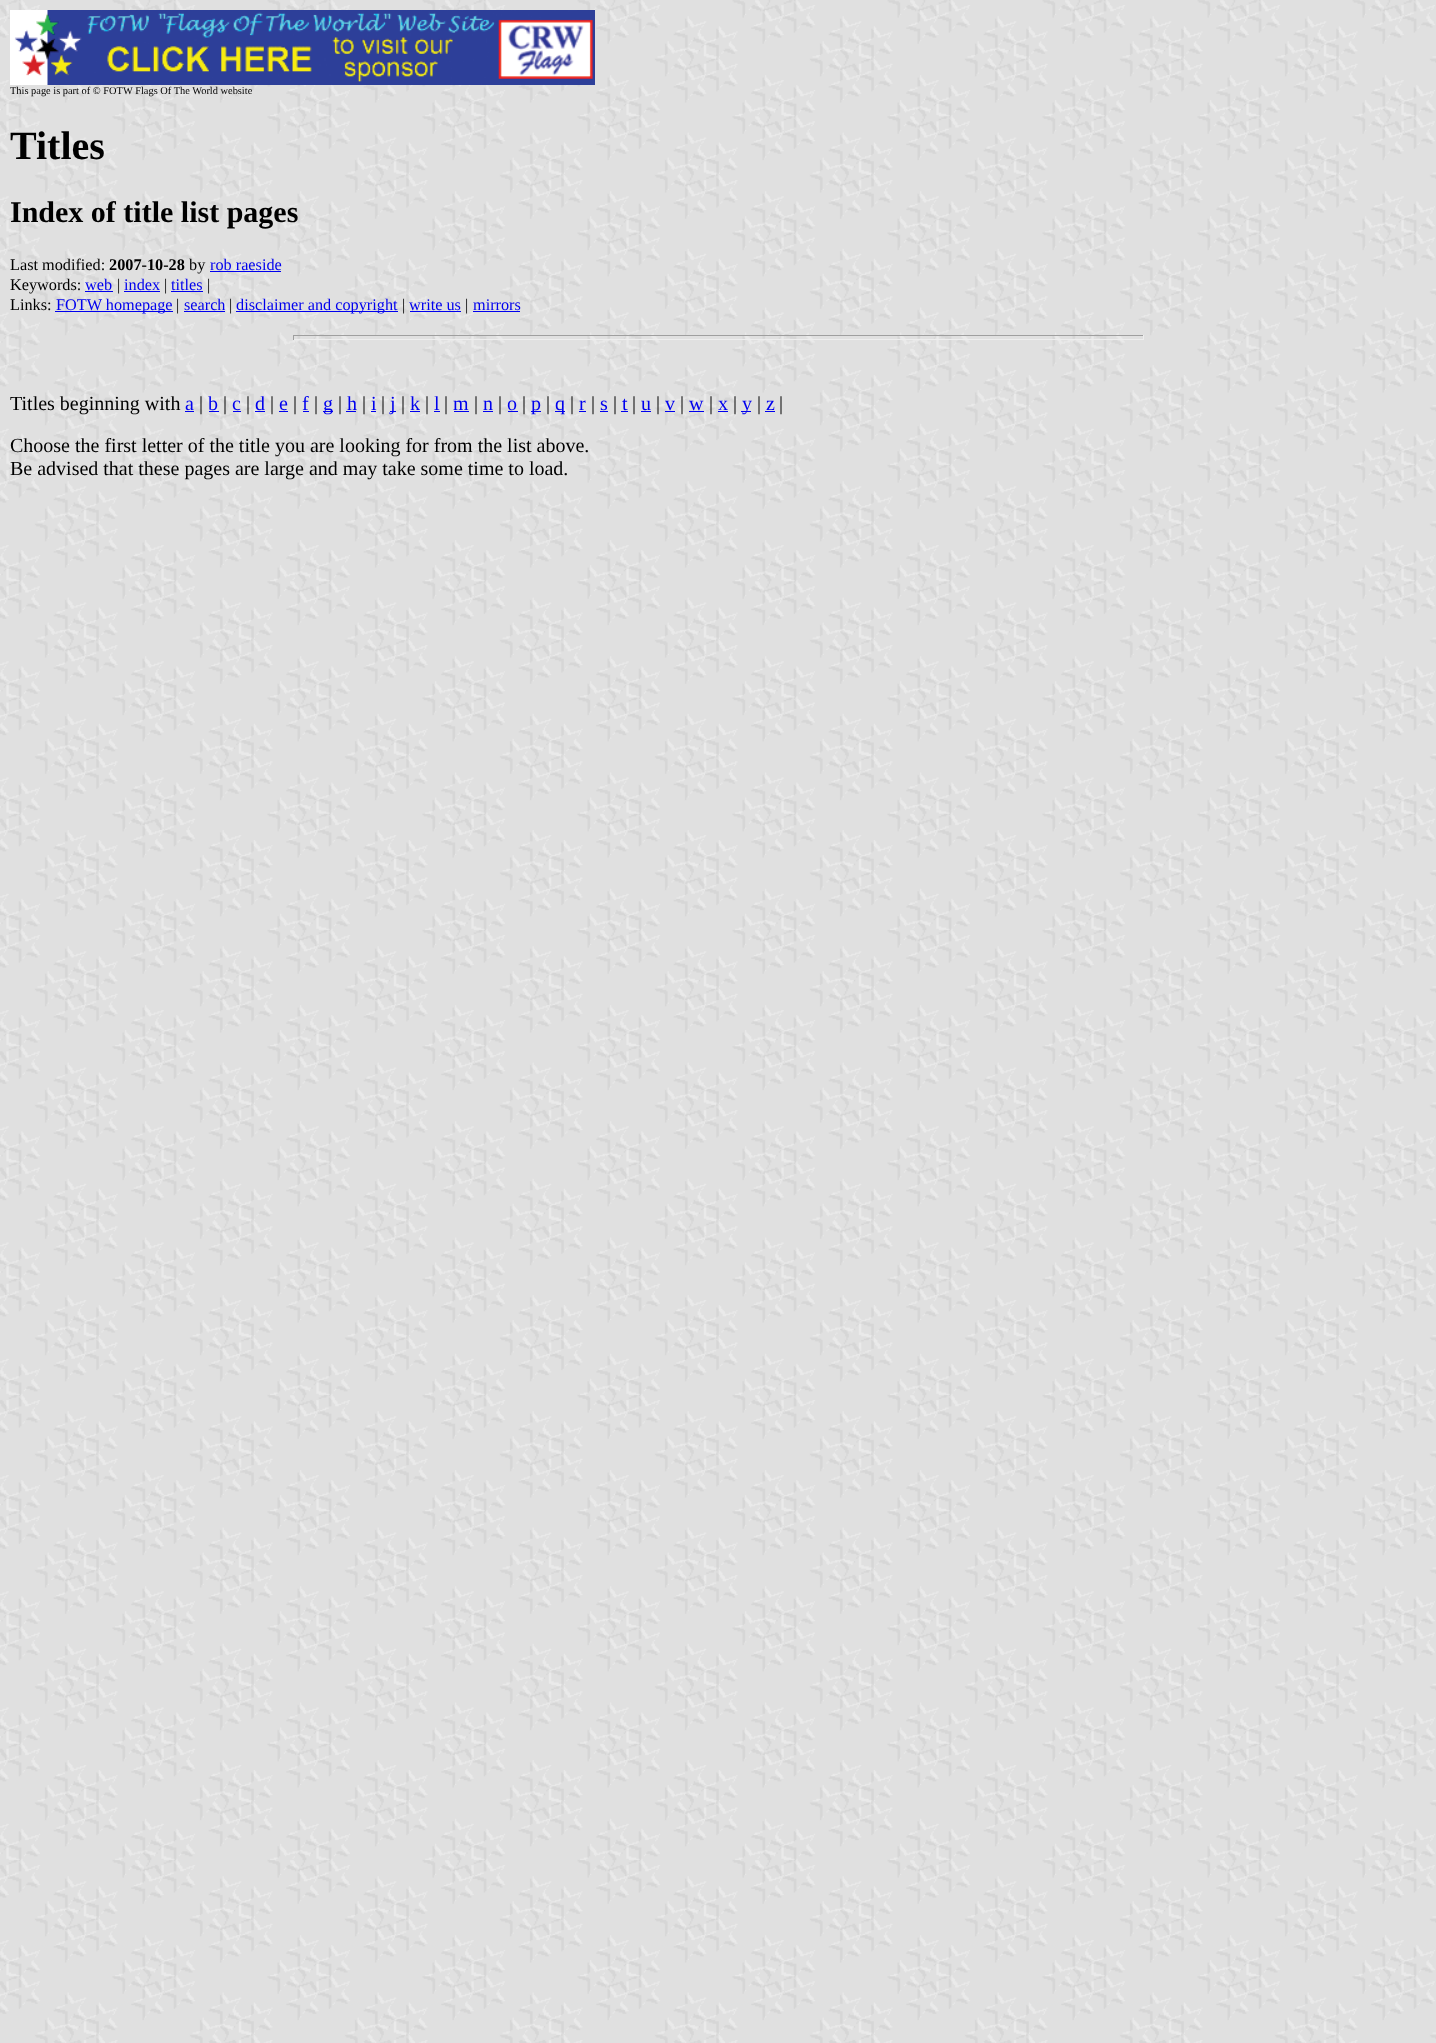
<svg xmlns="http://www.w3.org/2000/svg" width="1436" height="2043" viewBox="0 0 1436 2043">
  <rect width="100%" height="100%" fill="#fff"/>
  <image x="0" y="0" width="1436" height="2043" href="img/1.png"/>
  <image x="10" y="10" width="585" height="75" href="img/2.png"/>
  <path d="M210 271h71v1H210z" fill="#00e"/>
  <path d="M85 291h28v1H85z" fill="#00e"/>
  <path d="M124 291h36v1H124z" fill="#00e"/>
  <path d="M171 291h32v1H171z" fill="#00e"/>
  <path d="M55 311h118v1H55z" fill="#00e"/>
  <path d="M184 311h41v1H184z" fill="#00e"/>
  <path d="M236 311h162v1H236z" fill="#00e"/>
  <path d="M410 311h51v1H410z" fill="#00e"/>
  <path d="M473 311h47v1H473z" fill="#00e"/>
  <path d="M293 335h851v1H293z" fill="#9f9f9f"/>
  <path d="M1143 335h1v5H1143z" fill="#eee"/>
  <path d="M293 339h851v1H293z" fill="#eee"/>
  <path d="M293 335h1v5H293z" fill="#9f9f9f"/>
  <path d="M185 411h9v1H185z" fill="#00e"/>
  <path d="M209 411h10v1H209z" fill="#00e"/>
  <path d="M233 411h8v1H233z" fill="#00e"/>
  <path d="M255 411h10v1H255z" fill="#00e"/>
  <path d="M279 411h9v1H279z" fill="#00e"/>
  <path d="M303 411h6v1H303z" fill="#00e"/>
  <path d="M323 411h10v1H323z" fill="#00e"/>
  <path d="M346 411h10v1H346z" fill="#00e"/>
  <path d="M371 411h5v1H371z" fill="#00e"/>
  <path d="M390 411h6v1H390z" fill="#00e"/>
  <path d="M410 411h10v1H410z" fill="#00e"/>
  <path d="M434 411h6v1H434z" fill="#00e"/>
  <path d="M454 411h15v1H454z" fill="#00e"/>
  <path d="M483 411h10v1H483z" fill="#00e"/>
  <path d="M508 411h10v1H508z" fill="#00e"/>
  <path d="M531 411h10v1H531z" fill="#00e"/>
  <path d="M555 411h10v1H555z" fill="#00e"/>
  <path d="M579 411h7v1H579z" fill="#00e"/>
  <path d="M600 411h8v1H600z" fill="#00e"/>
  <path d="M621 411h7v1H621z" fill="#00e"/>
  <path d="M641 411h10v1H641z" fill="#00e"/>
  <path d="M665 411h10v1H665z" fill="#00e"/>
  <path d="M689 411h15v1H689z" fill="#00e"/>
  <path d="M718 411h10v1H718z" fill="#00e"/>
  <path d="M741 411h10v1H741z" fill="#00e"/>
  <path d="M765 411h10v1H765z" fill="#00e"/>
  <text x="10" y="94" font-family="Liberation Serif" font-size="10.4" fill="#000">This page is part of © FOTW Flags Of The World website</text>
  <text x="10" y="159" font-family="Liberation Serif" font-size="40" font-weight="bold" fill="#000">Titles</text>
  <text x="10" y="222" font-family="Liberation Serif" font-size="30" font-weight="bold" fill="#000">Index of title list pages</text>
  <text x="10" y="270" font-family="Liberation Serif" font-size="16.25" fill="#000">Last modified:</text>
  <text x="109" y="270" font-family="Liberation Serif" font-size="16.25" font-weight="bold" fill="#000">2007-10-28</text>
  <text x="189" y="270" font-family="Liberation Serif" font-size="16.25" fill="#000">by</text>
  <text x="210" y="270" font-family="Liberation Serif" font-size="16.25" fill="#00e">rob raeside</text>
  <text x="10" y="290" font-family="Liberation Serif" font-size="16.25" fill="#000">Keywords:</text>
  <text x="85" y="290" font-family="Liberation Serif" font-size="16.25" fill="#00e">web</text>
  <text x="117" y="290" font-family="Liberation Serif" font-size="16.25" fill="#000">|</text>
  <text x="124" y="290" font-family="Liberation Serif" font-size="16.25" fill="#00e">index</text>
  <text x="164" y="290" font-family="Liberation Serif" font-size="16.25" fill="#000">|</text>
  <text x="171" y="290" font-family="Liberation Serif" font-size="16.25" fill="#00e">titles</text>
  <g font-family="Liberation Serif" font-size="16.25" fill="#000">
    <text x="207" y="290">|</text>
    <text x="10" y="310">Links:</text>
  </g>
  <text x="56" y="310" font-family="Liberation Serif" font-size="16.25" fill="#00e">FOTW homepage</text>
  <text x="176" y="310" font-family="Liberation Serif" font-size="16.25" fill="#000">|</text>
  <text x="184" y="310" font-family="Liberation Serif" font-size="16.25" fill="#00e">search</text>
  <text x="229" y="310" font-family="Liberation Serif" font-size="16.25" fill="#000">|</text>
  <text x="236" y="310" font-family="Liberation Serif" font-size="16.25" fill="#00e">disclaimer and copyright</text>
  <text x="402" y="310" font-family="Liberation Serif" font-size="16.25" fill="#000">|</text>
  <text x="409" y="310" font-family="Liberation Serif" font-size="16.25" fill="#00e">write us</text>
  <text x="465" y="310" font-family="Liberation Serif" font-size="16.25" fill="#000">|</text>
  <text x="473" y="310" font-family="Liberation Serif" font-size="16.25" fill="#00e">mirrors</text>
  <text x="10" y="410" font-family="Liberation Serif" font-size="20" fill="#000">Titles beginning with</text>
  <text x="185" y="410" font-family="Liberation Serif" font-size="20" fill="#00e">a</text>
  <text x="199" y="410" font-family="Liberation Serif" font-size="20" fill="#000">|</text>
  <text x="208" y="410" font-family="Liberation Serif" font-size="20" fill="#00e">b</text>
  <text x="223" y="410" font-family="Liberation Serif" font-size="20" fill="#000">|</text>
  <text x="232" y="410" font-family="Liberation Serif" font-size="20" fill="#00e">c</text>
  <text x="246" y="410" font-family="Liberation Serif" font-size="20" fill="#000">|</text>
  <text x="255" y="410" font-family="Liberation Serif" font-size="20" fill="#00e">d</text>
  <text x="270" y="410" font-family="Liberation Serif" font-size="20" fill="#000">|</text>
  <text x="279" y="410" font-family="Liberation Serif" font-size="20" fill="#00e">e</text>
  <text x="293" y="410" font-family="Liberation Serif" font-size="20" fill="#000">|</text>
  <text x="302" y="410" font-family="Liberation Serif" font-size="20" fill="#00e">f</text>
  <text x="314" y="410" font-family="Liberation Serif" font-size="20" fill="#000">|</text>
  <text x="323" y="410" font-family="Liberation Serif" font-size="20" fill="#00e">g</text>
  <text x="338" y="410" font-family="Liberation Serif" font-size="20" fill="#000">|</text>
  <text x="347" y="410" font-family="Liberation Serif" font-size="20" fill="#00e">h</text>
  <text x="362" y="410" font-family="Liberation Serif" font-size="20" fill="#000">|</text>
  <text x="371" y="410" font-family="Liberation Serif" font-size="20" fill="#00e">i</text>
  <text x="381" y="410" font-family="Liberation Serif" font-size="20" fill="#000">|</text>
  <text x="390" y="410" font-family="Liberation Serif" font-size="20" fill="#00e">j</text>
  <text x="401" y="410" font-family="Liberation Serif" font-size="20" fill="#000">|</text>
  <text x="410" y="410" font-family="Liberation Serif" font-size="20" fill="#00e">k</text>
  <text x="425" y="410" font-family="Liberation Serif" font-size="20" fill="#000">|</text>
  <text x="434" y="410" font-family="Liberation Serif" font-size="20" fill="#00e">l</text>
  <text x="444" y="410" font-family="Liberation Serif" font-size="20" fill="#000">|</text>
  <text x="453" y="410" font-family="Liberation Serif" font-size="20" fill="#00e">m</text>
  <text x="474" y="410" font-family="Liberation Serif" font-size="20" fill="#000">|</text>
  <text x="483" y="410" font-family="Liberation Serif" font-size="20" fill="#00e">n</text>
  <text x="498" y="410" font-family="Liberation Serif" font-size="20" fill="#000">|</text>
  <text x="507" y="410" font-family="Liberation Serif" font-size="20" fill="#00e">o</text>
  <text x="522" y="410" font-family="Liberation Serif" font-size="20" fill="#000">|</text>
  <text x="531" y="410" font-family="Liberation Serif" font-size="20" fill="#00e">p</text>
  <text x="546" y="410" font-family="Liberation Serif" font-size="20" fill="#000">|</text>
  <text x="555" y="410" font-family="Liberation Serif" font-size="20" fill="#00e">q</text>
  <text x="570" y="410" font-family="Liberation Serif" font-size="20" fill="#000">|</text>
  <text x="579" y="410" font-family="Liberation Serif" font-size="20" fill="#00e">r</text>
  <text x="591" y="410" font-family="Liberation Serif" font-size="20" fill="#000">|</text>
  <text x="600" y="410" font-family="Liberation Serif" font-size="20" fill="#00e">s</text>
  <text x="613" y="410" font-family="Liberation Serif" font-size="20" fill="#000">|</text>
  <text x="622" y="410" font-family="Liberation Serif" font-size="20" fill="#00e">t</text>
  <text x="632" y="410" font-family="Liberation Serif" font-size="20" fill="#000">|</text>
  <text x="641" y="410" font-family="Liberation Serif" font-size="20" fill="#00e">u</text>
  <text x="656" y="410" font-family="Liberation Serif" font-size="20" fill="#000">|</text>
  <text x="665" y="410" font-family="Liberation Serif" font-size="20" fill="#00e">v</text>
  <text x="680" y="410" font-family="Liberation Serif" font-size="20" fill="#000">|</text>
  <text x="689" y="410" font-family="Liberation Serif" font-size="20" fill="#00e">w</text>
  <text x="709" y="410" font-family="Liberation Serif" font-size="20" fill="#000">|</text>
  <text x="718" y="410" font-family="Liberation Serif" font-size="20" fill="#00e">x</text>
  <text x="733" y="410" font-family="Liberation Serif" font-size="20" fill="#000">|</text>
  <text x="742" y="410" font-family="Liberation Serif" font-size="20" fill="#00e">y</text>
  <text x="757" y="410" font-family="Liberation Serif" font-size="20" fill="#000">|</text>
  <text x="766" y="410" font-family="Liberation Serif" font-size="20" fill="#00e">z</text>
  <g font-family="Liberation Serif" font-size="20" fill="#000">
    <text x="779" y="410">|</text>
    <text x="10" y="452">Choose the first letter of the title you are looking for from the list above.</text>
    <text x="10" y="475">Be advised that these pages are large and may take some time to load.</text>
  </g>
</svg>
